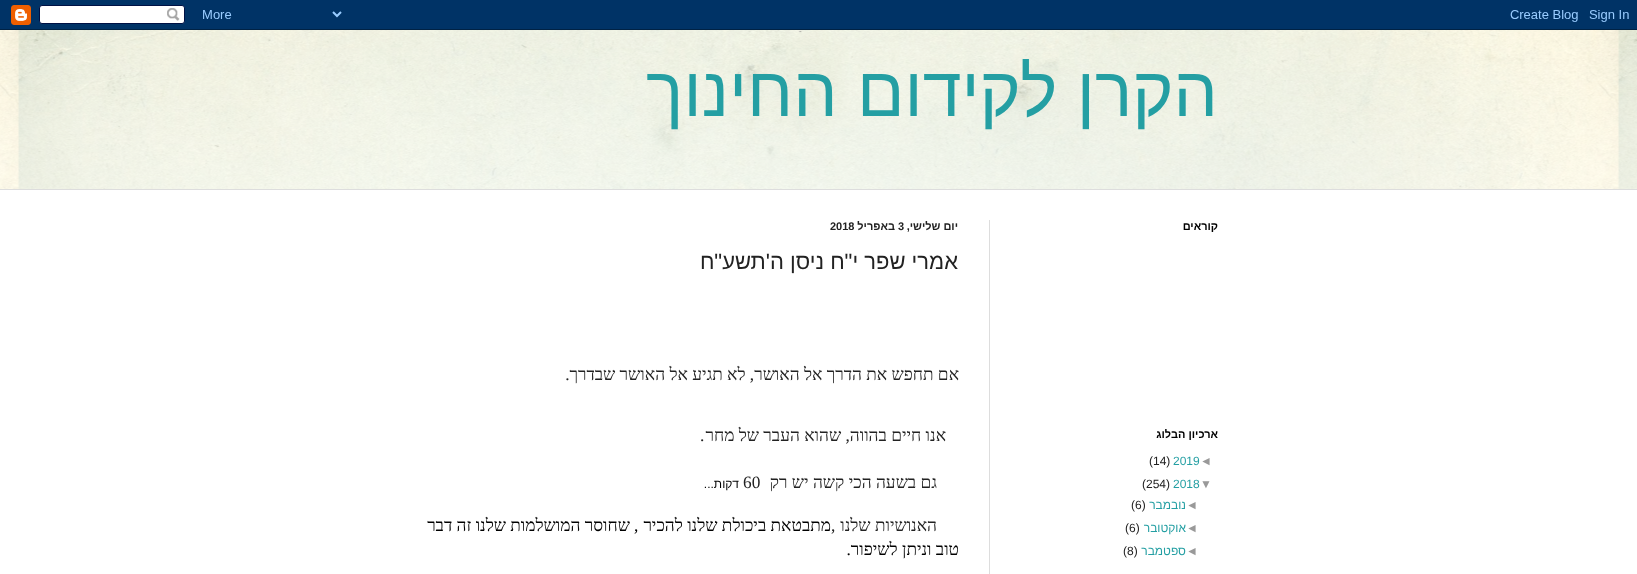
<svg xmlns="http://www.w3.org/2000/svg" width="1637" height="574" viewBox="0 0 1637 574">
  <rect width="100%" height="100%" fill="#fff"/>
  <image x="0" y="30" width="1637" height="159" href="img/1.png"/>
  <image x="0" y="0" width="1637" height="30" href="img/2.png"/>
  <image x="0" y="30" width="1637" height="159" href="img/3.png"/>
  <path d="M0 189h1637v1H0z" fill="#ddd"/>
  <path d="M989 220h1v354H989z" fill="#ddd"/>
  <text x="1218" y="116" font-family="Liberation Sans" font-size="70" direction="rtl" fill="#249fa3">הקרן לקידום החינוך</text>
  <g font-family="Liberation Sans" font-size="11" font-weight="bold" direction="rtl" fill="#000">
    <text x="1218" y="230">קוראים</text>
    <text x="1218" y="438">ארכיון הבלוג</text>
  </g>
  <text x="1200" y="465" font-family="Liberation Sans" font-size="12" fill="#999">◄</text>
  <text x="1173" y="465" font-family="Liberation Sans" font-size="12" fill="#249fa3">2019</text>
  <text x="1149" y="465" font-family="Liberation Sans" font-size="12" fill="#222">(14)</text>
  <text x="1200" y="488" font-family="Liberation Sans" font-size="12" fill="#999">▼</text>
  <text x="1173" y="488" font-family="Liberation Sans" font-size="12" fill="#249fa3">2018</text>
  <text x="1142" y="488" font-family="Liberation Sans" font-size="12" fill="#222">(254)</text>
  <text x="1186" y="509" font-family="Liberation Sans" font-size="12" fill="#999">◄</text>
  <text x="1186" y="509" font-family="Liberation Sans" font-size="12" direction="rtl" fill="#249fa3">נובמבר</text>
  <text x="1131" y="509" font-family="Liberation Sans" font-size="12" fill="#222">(6)</text>
  <text x="1186" y="532" font-family="Liberation Sans" font-size="12" fill="#999">◄</text>
  <text x="1186" y="532" font-family="Liberation Sans" font-size="12" direction="rtl" fill="#249fa3">אוקטובר</text>
  <text x="1125" y="532" font-family="Liberation Sans" font-size="12" fill="#222">(6)</text>
  <text x="1186" y="555" font-family="Liberation Sans" font-size="12" fill="#999">◄</text>
  <text x="1186" y="555" font-family="Liberation Sans" font-size="12" direction="rtl" fill="#249fa3">ספטמבר</text>
  <text x="1123" y="555" font-family="Liberation Sans" font-size="12" fill="#222">(8)</text>
  <text x="958" y="230" font-family="Liberation Sans" font-size="11" font-weight="bold" direction="rtl" fill="#222">יום שלישי,</text>
  <text x="898" y="230" font-family="Liberation Sans" font-size="11" font-weight="bold" fill="#222">3</text>
  <text x="895" y="230" font-family="Liberation Sans" font-size="11" font-weight="bold" direction="rtl" fill="#222">באפריל</text>
  <text x="830" y="230" font-family="Liberation Sans" font-size="11" font-weight="bold" fill="#222">2018</text>
  <text x="958" y="269" font-family="Liberation Sans" font-size="22" direction="rtl" fill="#222">אמרי שפר י"ח ניסן ה'תשע"ח</text>
  <g font-family="Liberation Serif" font-size="17.3" direction="rtl" fill="#222">
    <text x="959" y="380">אם תחפש את הדרך אל האושר, לא תגיע אל האושר שבדרך.</text>
    <text x="946" y="441">אנו חיים בהווה, שהוא העבר של מחר</text>
  </g>
  <text x="700" y="441" font-family="Liberation Serif" font-size="17.3" fill="#222">.</text>
  <text x="937" y="488" font-family="Liberation Serif" font-size="17.3" direction="rtl" fill="#222">גם בשעה הכי קשה יש רק</text>
  <text x="743" y="488" font-family="Liberation Serif" font-size="17.3" fill="#222">60</text>
  <text x="739" y="488" font-family="Liberation Sans" font-size="12" direction="rtl" fill="#000">דקות...</text>
  <text x="937" y="531" font-family="Liberation Serif" font-size="17.3" direction="rtl" fill="#222">האנושיות שלנו</text>
  <text x="831" y="531" font-family="Liberation Serif" font-size="17.3" fill="#222">,</text>
  <text x="831" y="531" font-family="Liberation Serif" font-size="17.3" direction="rtl" fill="#000">מתבטאת ביכולת שלנו להכיר</text>
  <text x="634" y="531" font-family="Liberation Serif" font-size="17.3" fill="#000">,</text>
  <g font-family="Liberation Serif" font-size="17.3" direction="rtl" fill="#000">
    <text x="630" y="531">שחוסר המושלמות שלנו זה דבר</text>
    <text x="959" y="555">טוב וניתן לשיפור.</text>
  </g>
</svg>
